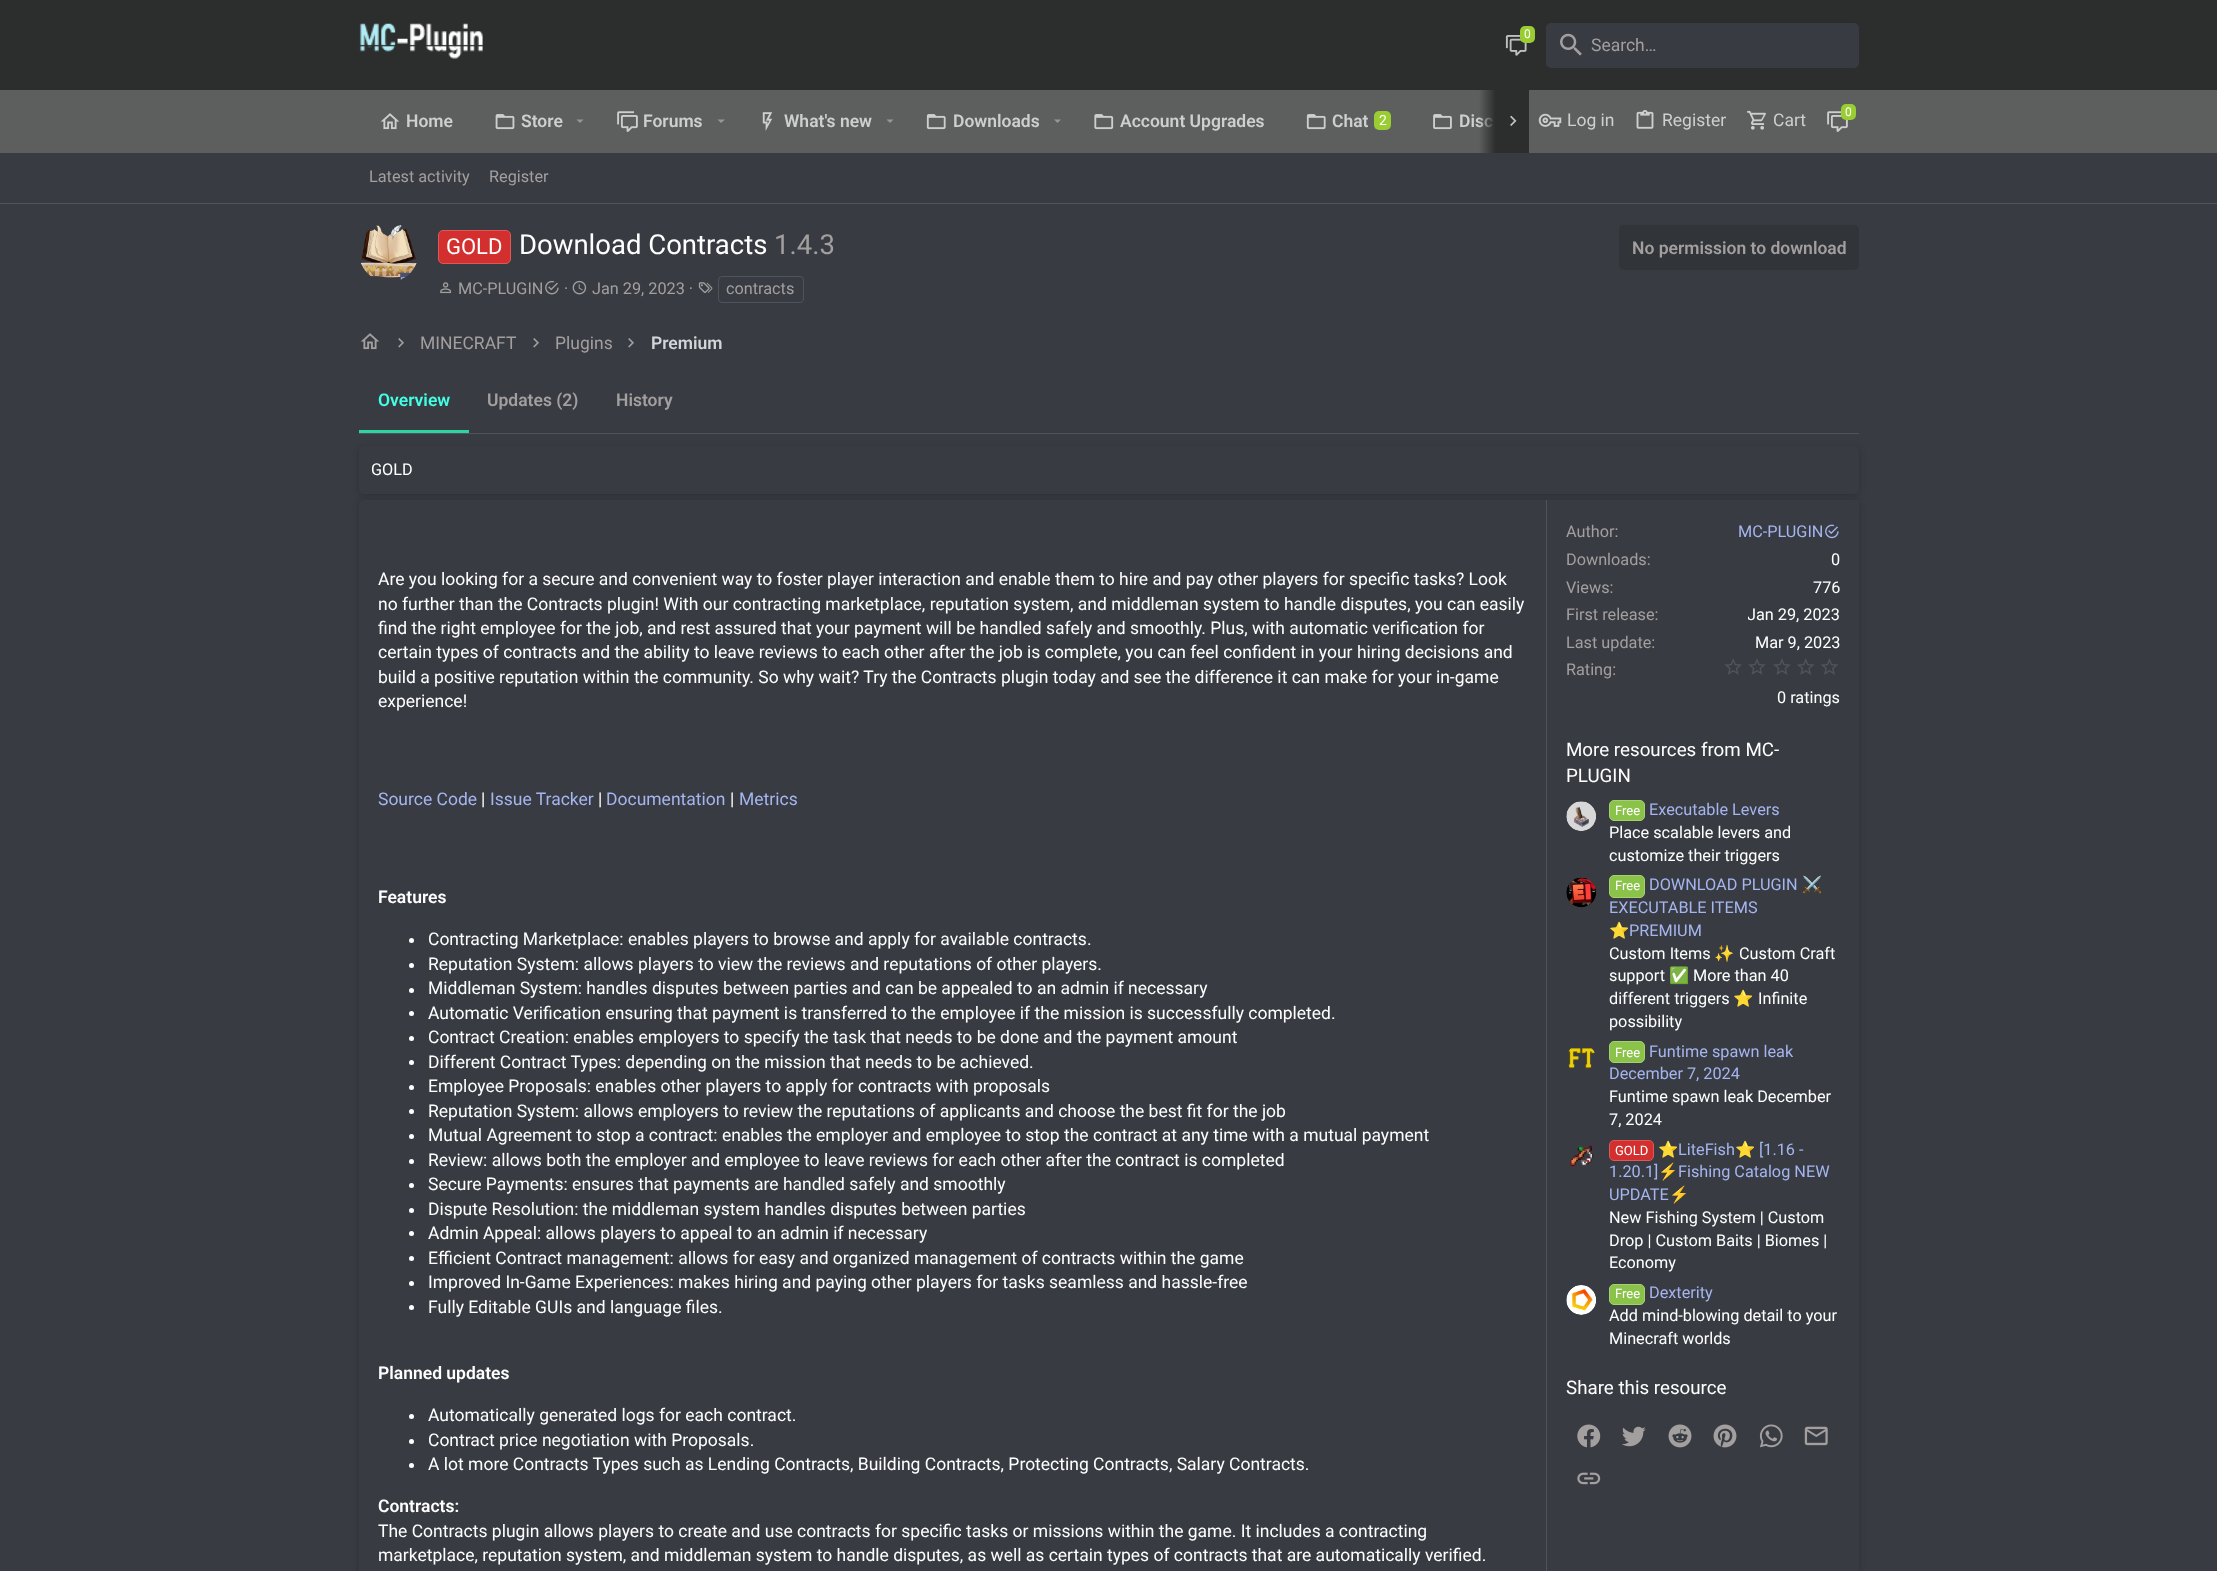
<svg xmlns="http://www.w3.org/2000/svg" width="2217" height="1571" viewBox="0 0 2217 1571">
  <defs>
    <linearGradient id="g1" gradientUnits="userSpaceOnUse" x1="1479" y1="121" x2="1529" y2="121"><stop offset="0" stop-color="#2c2d2d" stop-opacity="0"/><stop offset="0.33" stop-color="#2c2d2d"/></linearGradient>
    <clipPath id="clip1"><path d="M1748 601h92v28H1748z"/></clipPath>
  </defs>
  <rect width="100%" height="100%" fill="#383c42"/>
  <path d="M0 0h2217v90H0z" fill="#2c2d2d"/>
  <image x="359" y="23" width="124" height="36" href="img/1.png"/>
  <image x="1505" y="35" width="22" height="21" href="img/2.png"/>
  <rect x="1520" y="26" width="15" height="17" rx="5" fill="#9acd32"/>
  <rect x="1546" y="23" width="313" height="45" rx="5" fill="#383c42"/>
  <image x="1560" y="33" width="22" height="23" href="img/3.png"/>
  <path d="M0 90h2217v63H0z" fill="#5d5f5f"/>
  <image x="380" y="113" width="20" height="17" href="img/4.png"/>
  <image x="495" y="114" width="20" height="16" href="img/5.png"/>
  <path d="M576.5 119.5L580 123L583.5 119.5Z" fill="#969797"/>
  <image x="617" y="111" width="21" height="21" href="img/6.png"/>
  <path d="M717.5 119.5L721 123L725 119.5Z" fill="#969797"/>
  <image x="762" y="112" width="11" height="19" href="img/7.png"/>
  <path d="M886.5 119.5L890 123L893.5 119.5Z" fill="#969797"/>
  <image x="926" y="114" width="20" height="16" href="img/8.png"/>
  <path d="M1054 119.5L1057.5 123L1061 119.5Z" fill="#969797"/>
  <image x="1094" y="114" width="20" height="16" href="img/9.png"/>
  <image x="1306" y="114" width="20" height="16" href="img/8.png"/>
  <rect x="1374" y="111" width="17" height="19" rx="5" fill="#9acd32"/>
  <image x="1433" y="114" width="19" height="16" href="img/10.png"/>
  <image x="1827" y="111" width="21" height="21" href="img/6.png"/>
  <rect x="1841" y="104" width="15" height="16" rx="5" fill="#9acd32"/>
  <image x="1538" y="113" width="24" height="14" href="img/12.png"/>
  <image x="1636" y="110" width="18" height="19" href="img/13.png"/>
  <image x="1747" y="110" width="19" height="20" href="img/14.png"/>
  <path d="M0 203h2217v1H0z" fill="#505359"/>
  <image x="360" y="225" width="57" height="55" href="img/15.png"/>
  <rect x="438.5" y="230.5" width="72" height="33" rx="4.5" fill="#d32f2f" stroke="#dc5959"/>
  <rect x="1619" y="225" width="240" height="45" rx="5" fill="#31353a"/>
  <image x="440" y="282" width="12" height="12" href="img/16.png"/>
  <image x="545" y="280" width="14" height="15" href="img/17.png"/>
  <image x="572" y="280" width="15" height="15" href="img/18.png"/>
  <image x="698" y="282" width="15" height="11" href="img/19.png"/>
  <rect x="718.5" y="276.5" width="85" height="26" rx="3.5" fill="none" stroke="#505359"/>
  <image x="360" y="333" width="20" height="17" href="img/20.png"/>
  <image x="398" y="338" width="6" height="10" href="img/21.png"/>
  <image x="533" y="338" width="6" height="10" href="img/21.png"/>
  <image x="628" y="338" width="6" height="10" href="img/21.png"/>
  <path d="M359 433h1500v1H359z" fill="#505359"/>
  <path d="M359 430h110v3H359z" fill="#2bd79f"/>
  <rect x="359" y="448" width="1500" height="47" rx="5" fill="#00000033" filter="blur(3px)"/>
  <rect x="359" y="446" width="1500" height="48" rx="5" fill="#383c42"/>
  <rect x="359" y="501" width="1500" height="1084" rx="5" fill="#00000033" filter="blur(3px)"/>
  <rect x="359" y="500" width="1500" height="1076" rx="5" fill="#383c42"/>
  <circle cx="411.5" cy="940.5" r="2.5" fill="#fff"/>
  <circle cx="411.5" cy="965.5" r="2.5" fill="#fff"/>
  <circle cx="411.5" cy="990.5" r="2.5" fill="#fff"/>
  <circle cx="411.5" cy="1013.5" r="2.5" fill="#fff"/>
  <circle cx="411.5" cy="1038.5" r="2.5" fill="#fff"/>
  <circle cx="411.5" cy="1062.5" r="2.5" fill="#fff"/>
  <circle cx="411.5" cy="1087.5" r="2.5" fill="#fff"/>
  <circle cx="411.5" cy="1111.5" r="2.5" fill="#fff"/>
  <circle cx="411.5" cy="1136.5" r="2.5" fill="#fff"/>
  <circle cx="411.5" cy="1161.5" r="2.5" fill="#fff"/>
  <circle cx="411.5" cy="1185.5" r="2.5" fill="#fff"/>
  <circle cx="411.5" cy="1210.5" r="2.5" fill="#fff"/>
  <circle cx="411.5" cy="1233.5" r="2.5" fill="#fff"/>
  <circle cx="411.5" cy="1258.5" r="2.5" fill="#fff"/>
  <circle cx="411.5" cy="1283.5" r="2.5" fill="#fff"/>
  <circle cx="411.5" cy="1307.5" r="2.5" fill="#fff"/>
  <circle cx="411.5" cy="1416.5" r="2.5" fill="#fff"/>
  <circle cx="411.5" cy="1441.5" r="2.5" fill="#fff"/>
  <circle cx="411.5" cy="1465.5" r="2.5" fill="#fff"/>
  <path d="M1856 500h3v3H1856z" fill="#383c42"/>
  <path d="M1546 500h1v1071H1546z" fill="#505359"/>
  <image x="1825" y="524" width="14" height="15" href="img/22.png"/>
  <image x="1724" y="658" width="18" height="17" href="img/23.png"/>
  <image x="1748" y="658" width="18" height="17" href="img/24.png"/>
  <image x="1773" y="658" width="18" height="17" href="img/24.png"/>
  <image x="1797" y="658" width="18" height="17" href="img/25.png"/>
  <image x="1821" y="658" width="17" height="17" href="img/26.png"/>
  <image x="1566" y="801" width="30" height="30" href="img/27.png"/>
  <rect x="1609.5" y="800.5" width="35" height="20" rx="4.5" fill="#8bc34a" stroke="#a4d070"/>
  <image x="1566" y="877" width="30" height="31" href="img/28.png"/>
  <rect x="1609.5" y="875.5" width="35" height="22" rx="4.5" fill="#8bc34a" stroke="#a4d070"/>
  <image x="1568" y="1048" width="27" height="21" href="img/29.png"/>
  <rect x="1609.5" y="1041.5" width="35" height="21" rx="4.5" fill="#8bc34a" stroke="#a4d070"/>
  <image x="1570" y="1145" width="24" height="22" href="img/30.png"/>
  <rect x="1609.5" y="1140.5" width="44" height="20" rx="4.5" fill="#d32f2f" stroke="#dc5959"/>
  <image x="1566" y="1285" width="30" height="30" href="img/31.png"/>
  <rect x="1609.5" y="1284.5" width="35" height="20" rx="4.5" fill="#8bc34a" stroke="#a4d070"/>
  <image x="1577" y="1424" width="24" height="24" href="img/32.png"/>
  <image x="1622" y="1426" width="24" height="21" href="img/33.png"/>
  <image x="1668" y="1424" width="24" height="24" href="img/34.png"/>
  <image x="1713" y="1424" width="24" height="24" href="img/35.png"/>
  <image x="1759" y="1424" width="24" height="24" href="img/36.png"/>
  <image x="1804" y="1426" width="24" height="20" href="img/37.png"/>
  <image x="1577" y="1472" width="24" height="13" href="img/38.png"/>
  <text x="1524" y="38" font-family="Roboto" font-size="12" fill="#fff">0</text>
  <text x="1591" y="51" font-family="Roboto" font-size="17.5" fill="#a39f9f">Search…</text>
  <g font-family="Roboto" font-size="17.5" font-weight="600" fill="#cecfcf">
    <text x="406" y="127">Home</text>
    <text x="521" y="127">Store</text>
    <text x="643" y="127">Forums</text>
    <text x="784" y="127">What's new</text>
    <text x="953" y="127">Downloads</text>
    <text x="1120" y="127">Account Upgrades</text>
    <text x="1332" y="127">Chat</text>
  </g>
  <text x="1379" y="125" font-family="Roboto" font-size="14" fill="#fff">2</text>
  <text x="1459" y="127" font-family="Roboto" font-size="17.5" font-weight="600" fill="#cecfcf">Disc</text>
  <path d="M1479 90h50v63H1479z" fill="url(#g1)"/>
  <image x="1510" y="115" width="7" height="11" href="img/11.png"/>
  <text x="1845" y="116" font-family="Roboto" font-size="12" fill="#fff">0</text>
  <g font-family="Roboto" font-size="17.5" fill="#cecfcf">
    <text x="1567" y="126">Log in</text>
    <text x="1662" y="126">Register</text>
    <text x="1773" y="126">Cart</text>
  </g>
  <g font-family="Roboto" font-size="16.25" fill="#a39f9f">
    <text x="369" y="182">Latest activity</text>
    <text x="489" y="182">Register</text>
  </g>
  <text x="446" y="254" font-family="Roboto" font-size="22" fill="#fff">GOLD</text>
  <text x="519" y="254" font-family="Roboto" font-size="27.5" fill="#fff">Download Contracts</text>
  <text x="774" y="254" font-family="Roboto" font-size="27.5" fill="#a39f9f">1.4.3</text>
  <text x="1632" y="254" font-family="Roboto" font-size="17.5" font-weight="600" fill="#a39f9f">No permission to download</text>
  <g font-family="Roboto" font-size="16.25" fill="#a39f9f">
    <text x="458" y="294">MC-PLUGIN</text>
    <text x="564" y="294">·</text>
    <text x="592" y="294">Jan 29, 2023 ·</text>
    <text x="726" y="294">contracts</text>
  </g>
  <g font-family="Roboto" font-size="17.5" fill="#a39f9f">
    <text x="420" y="349">MINECRAFT</text>
    <text x="555" y="349">Plugins</text>
  </g>
  <text x="651" y="349" font-family="Roboto" font-size="17.5" font-weight="600" fill="#d3d5d9">Premium</text>
  <text x="378" y="406" font-family="Roboto" font-size="17.5" font-weight="600" fill="#42ffe5">Overview</text>
  <g font-family="Roboto" font-size="17.5" font-weight="600" fill="#a39f9f">
    <text x="487" y="406">Updates (2)</text>
    <text x="616" y="406">History</text>
  </g>
  <text x="371" y="475" font-family="Roboto" font-size="16.25" fill="#fff">GOLD</text>
  <g font-family="Roboto" font-size="17.5" fill="#fff">
    <text x="378" y="585">Are you looking for a secure and convenient way to foster player interaction and enable them to hire and pay other players for specific tasks? Look</text>
    <text x="378" y="610">no further than the Contracts plugin! With our contracting marketplace, reputation system, and middleman system to handle disputes, you can easily</text>
    <text x="378" y="634">find the right employee for the job, and rest assured that your payment will be handled safely and smoothly. Plus, with automatic verification for</text>
    <text x="378" y="658">certain types of contracts and the ability to leave reviews to each other after the job is complete, you can feel confident in your hiring decisions and</text>
    <text x="378" y="683">build a positive reputation within the community. So why wait? Try the Contracts plugin today and see the difference it can make for your in-game</text>
    <text x="378" y="707">experience!</text>
  </g>
  <text x="378" y="805" font-family="Roboto" font-size="17.5" fill="#a5b5ef">Source Code</text>
  <text x="481" y="805" font-family="Roboto" font-size="17.5" fill="#fff">|</text>
  <text x="490" y="805" font-family="Roboto" font-size="17.5" fill="#a5b5ef">Issue Tracker</text>
  <text x="598" y="805" font-family="Roboto" font-size="17.5" fill="#fff">|</text>
  <text x="606" y="805" font-family="Roboto" font-size="17.5" fill="#a5b5ef">Documentation</text>
  <text x="730" y="805" font-family="Roboto" font-size="17.5" fill="#fff">|</text>
  <text x="739" y="805" font-family="Roboto" font-size="17.5" fill="#a5b5ef">Metrics</text>
  <text x="378" y="903" font-family="Roboto" font-size="17.5" font-weight="600" fill="#fff">Features</text>
  <g font-family="Roboto" font-size="17.5" fill="#fff">
    <text x="428" y="945">Contracting Marketplace: enables players to browse and apply for available contracts.</text>
    <text x="428" y="970">Reputation System: allows players to view the reviews and reputations of other players.</text>
    <text x="428" y="994">Middleman System: handles disputes between parties and can be appealed to an admin if necessary</text>
    <text x="428" y="1019">Automatic Verification ensuring that payment is transferred to the employee if the mission is successfully completed.</text>
    <text x="428" y="1043">Contract Creation: enables employers to specify the task that needs to be done and the payment amount</text>
    <text x="428" y="1068">Different Contract Types: depending on the mission that needs to be achieved.</text>
    <text x="428" y="1092">Employee Proposals: enables other players to apply for contracts with proposals</text>
    <text x="428" y="1117">Reputation System: allows employers to review the reputations of applicants and choose the best fit for the job</text>
    <text x="428" y="1141">Mutual Agreement to stop a contract: enables the employer and employee to stop the contract at any time with a mutual payment</text>
    <text x="428" y="1166">Review: allows both the employer and employee to leave reviews for each other after the contract is completed</text>
    <text x="428" y="1190">Secure Payments: ensures that payments are handled safely and smoothly</text>
    <text x="428" y="1215">Dispute Resolution: the middleman system handles disputes between parties</text>
    <text x="428" y="1239">Admin Appeal: allows players to appeal to an admin if necessary</text>
    <text x="428" y="1264">Efficient Contract management: allows for easy and organized management of contracts within the game</text>
    <text x="428" y="1288">Improved In-Game Experiences: makes hiring and paying other players for tasks seamless and hassle-free</text>
    <text x="428" y="1313">Fully Editable GUIs and language files.</text>
  </g>
  <text x="378" y="1379" font-family="Roboto" font-size="17.5" font-weight="600" fill="#fff">Planned updates</text>
  <g font-family="Roboto" font-size="17.5" fill="#fff">
    <text x="428" y="1421">Automatically generated logs for each contract.</text>
    <text x="428" y="1446">Contract price negotiation with Proposals.</text>
    <text x="428" y="1470">A lot more Contracts Types such as Lending Contracts, Building Contracts, Protecting Contracts, Salary Contracts.</text>
  </g>
  <text x="378" y="1512" font-family="Roboto" font-size="17.5" font-weight="600" fill="#fff">Contracts:</text>
  <g font-family="Roboto" font-size="17.5" fill="#fff">
    <text x="378" y="1537">The Contracts plugin allows players to create and use contracts for specific tasks or missions within the game. It includes a contracting</text>
    <text x="378" y="1561">marketplace, reputation system, and middleman system to handle disputes, as well as certain types of contracts that are automatically verified.</text>
  </g>
  <text x="1566" y="537" font-family="Roboto" font-size="16.25" fill="#a39f9f">Author:</text>
  <text x="1738" y="537" font-family="Roboto" font-size="16.25" fill="#a5b5ef">MC-PLUGIN</text>
  <text x="1566" y="565" font-family="Roboto" font-size="16.25" fill="#a39f9f">Downloads:</text>
  <text x="1831" y="565" font-family="Roboto" font-size="16.25" fill="#fff">0</text>
  <text x="1566" y="593" font-family="Roboto" font-size="16.25" fill="#a39f9f">Views:</text>
  <text x="1813" y="593" font-family="Roboto" font-size="16.25" fill="#fff">776</text>
  <text x="1566" y="620" font-family="Roboto" font-size="16.25" fill="#a39f9f">First release:</text>
  <g clip-path="url(#clip1)">
    <text x="1747" y="620" font-family="Roboto" font-size="16.25" fill="#fff">Jan 29, 2023</text>
  </g>
  <text x="1566" y="648" font-family="Roboto" font-size="16.25" fill="#a39f9f">Last update:</text>
  <text x="1755" y="648" font-family="Roboto" font-size="16.25" fill="#fff">Mar 9, 2023</text>
  <text x="1566" y="675" font-family="Roboto" font-size="16.25" fill="#a39f9f">Rating:</text>
  <text x="1777" y="703" font-family="Roboto" font-size="16.25" fill="#fff">0 ratings</text>
  <g font-family="Roboto" font-size="18.75" fill="#fff">
    <text x="1566" y="756">More resources from MC-</text>
    <text x="1566" y="782">PLUGIN</text>
  </g>
  <text x="1615" y="815" font-family="Roboto" font-size="13" fill="#fff">Free</text>
  <text x="1649" y="815" font-family="Roboto" font-size="16.25" fill="#a5b5ef">Executable Levers</text>
  <g font-family="Roboto" font-size="16.25" fill="#fff">
    <text x="1609" y="838">Place scalable levers and</text>
    <text x="1609" y="861">customize their triggers</text>
  </g>
  <text x="1615" y="890" font-family="Roboto" font-size="13" fill="#fff">Free</text>
  <text x="1649" y="890" font-family="Roboto" font-size="16.25" fill="#a5b5ef">DOWNLOAD PLUGIN</text>
  <text x="1802" y="890" font-family="Noto Color Emoji" font-size="16.25" fill="#a5b5ef">⚔️</text>
  <text x="1609" y="913" font-family="Roboto" font-size="16.25" fill="#a5b5ef">EXECUTABLE ITEMS</text>
  <text x="1609" y="936" font-family="Noto Color Emoji" font-size="16.25" fill="#a5b5ef">⭐</text>
  <text x="1629" y="936" font-family="Roboto" font-size="16.25" fill="#a5b5ef">PREMIUM</text>
  <text x="1609" y="959" font-family="Roboto" font-size="16.25" fill="#fff">Custom Items</text>
  <text x="1714" y="959" font-family="Noto Color Emoji" font-size="16.25" fill="#fff">✨</text>
  <g font-family="Roboto" font-size="16.25" fill="#fff">
    <text x="1739" y="959">Custom Craft</text>
    <text x="1609" y="981">support</text>
  </g>
  <text x="1669" y="981" font-family="Noto Color Emoji" font-size="16.25" fill="#fff">✅</text>
  <g font-family="Roboto" font-size="16.25" fill="#fff">
    <text x="1693" y="981">More than 40</text>
    <text x="1609" y="1004">different triggers</text>
  </g>
  <text x="1733" y="1004" font-family="Noto Color Emoji" font-size="16.25" fill="#fff">⭐</text>
  <g font-family="Roboto" font-size="16.25" fill="#fff">
    <text x="1758" y="1004">Infinite</text>
    <text x="1609" y="1027">possibility</text>
  </g>
  <text x="1615" y="1057" font-family="Roboto" font-size="13" fill="#fff">Free</text>
  <g font-family="Roboto" font-size="16.25" fill="#a5b5ef">
    <text x="1649" y="1057">Funtime spawn leak</text>
    <text x="1609" y="1079">December 7, 2024</text>
  </g>
  <g font-family="Roboto" font-size="16.25" fill="#fff">
    <text x="1609" y="1102">Funtime spawn leak December</text>
    <text x="1609" y="1125">7, 2024</text>
  </g>
  <text x="1615" y="1155" font-family="Roboto" font-size="13" fill="#fff">GOLD</text>
  <text x="1658" y="1155" font-family="Noto Color Emoji" font-size="16.25" fill="#a5b5ef">⭐</text>
  <text x="1678" y="1155" font-family="Roboto" font-size="16.25" fill="#a5b5ef">LiteFish</text>
  <text x="1735" y="1155" font-family="Noto Color Emoji" font-size="16.25" fill="#a5b5ef">⭐</text>
  <g font-family="Roboto" font-size="16.25" fill="#a5b5ef">
    <text x="1759" y="1155">[1.16 -</text>
    <text x="1609" y="1177">1.20.1]</text>
  </g>
  <text x="1658" y="1177" font-family="Noto Color Emoji" font-size="16.25" fill="#a5b5ef">⚡</text>
  <g font-family="Roboto" font-size="16.25" fill="#a5b5ef">
    <text x="1678" y="1177">Fishing Catalog NEW</text>
    <text x="1609" y="1200">UPDATE</text>
  </g>
  <text x="1669" y="1200" font-family="Noto Color Emoji" font-size="16.25" fill="#a5b5ef">⚡</text>
  <g font-family="Roboto" font-size="16.25" fill="#fff">
    <text x="1609" y="1223">New Fishing System | Custom</text>
    <text x="1609" y="1246">Drop | Custom Baits | Biomes |</text>
    <text x="1609" y="1268">Economy</text>
  </g>
  <text x="1615" y="1298" font-family="Roboto" font-size="13" fill="#fff">Free</text>
  <text x="1649" y="1298" font-family="Roboto" font-size="16.25" fill="#a5b5ef">Dexterity</text>
  <g font-family="Roboto" font-size="16.25" fill="#fff">
    <text x="1609" y="1321">Add mind-blowing detail to your</text>
    <text x="1609" y="1344">Minecraft worlds</text>
  </g>
  <text x="1566" y="1394" font-family="Roboto" font-size="18.75" fill="#fff">Share this resource</text>
</svg>
